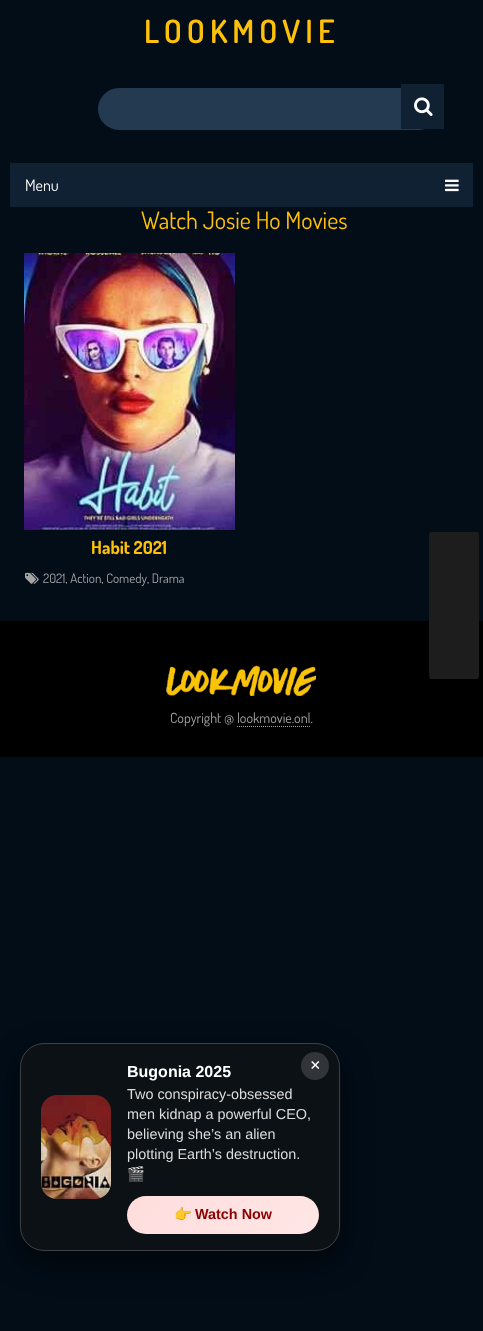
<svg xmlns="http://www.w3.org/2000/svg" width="483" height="1331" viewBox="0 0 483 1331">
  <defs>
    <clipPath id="clip1"><path d="M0 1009H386V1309H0ZM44 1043H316C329.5 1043 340 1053.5 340 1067V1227C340 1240.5 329.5 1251 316 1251H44C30.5 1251 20 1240.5 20 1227V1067C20 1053.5 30.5 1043 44 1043Z" clip-rule="evenodd"/></clipPath>
    <linearGradient id="g1" gradientUnits="userSpaceOnUse" x1="166" y1="1158" x2="281" y2="1273"><stop offset="0" stop-color="#fdd"/><stop offset="1" stop-color="#ffe6e6"/></linearGradient>
  </defs>
  <rect width="100%" height="100%" fill="#020d18"/>
  <rect x="96" y="86" width="346" height="46" rx="23" fill="#233a50" stroke="#020d18" stroke-width="4"/>
  <path d="M401 84h43v45H401z" fill="#0f2133"/>
  <image x="414" y="97" width="19" height="19" href="img/1.png"/>
  <path d="M10 163h463v44H10z" fill="#0f2133"/>
  <image x="445" y="179" width="14" height="13" href="img/2.png"/>
  <path d="M0 621h483v136H0z" fill="#000"/>
  <path d="M430 532H478C478 532 479 534 479 536V675C479 677 478 679 478 679H430C430 679 429 677 429 675V536C429 534 430 532 430 532Z" fill="#1d1d1d"/>
  <image x="24" y="253" width="211" height="277" href="img/3.png"/>
  <image x="25" y="572" width="14" height="12" href="img/4.png"/>
  <g clip-path="url(#clip1)">
    <rect x="20" y="1055" width="320" height="208" rx="24" fill="#00000099" filter="blur(15px)"/>
  </g>
  <rect x="20" y="1043" width="320" height="208" rx="24" fill="#14141499"/>
  <rect x="20.5" y="1043.5" width="319" height="207" rx="23.5" fill="none" stroke="#ffffff33"/>
  <image x="41" y="1095" width="70" height="104" href="img/5.png"/>
  <rect x="127" y="1196" width="192" height="38" rx="19" fill="url(#g1)"/>
  <circle cx="315" cy="1066" r="14" fill="#313539"/>
  <image x="166" y="665" width="150" height="31" href="img/6.png"/>
  <path d="M237 726.5H311" fill="none" stroke="#a4a4a4" stroke-dasharray="1 1"/>
  <text x="144" y="43" font-family="Dosis" font-size="32" font-weight="600" letter-spacing="5" fill="#ffc107">LOOKMOVIE</text>
  <text x="25" y="191" font-family="Dosis" font-size="16" fill="#fff">Menu</text>
  <text x="141" y="229" font-family="Dosis" font-size="24" fill="#ffc107">Watch Josie Ho Movies</text>
  <text x="91" y="554" font-family="Dosis" font-size="18" font-weight="bold" fill="#ffc107">Habit 2021</text>
  <g font-family="Dosis" font-size="13" fill="#a4a4a4">
    <text x="43" y="583">2021, Action, Comedy</text>
    <text x="147" y="583">, Drama</text>
  </g>
  <text x="127" y="1077" font-family="Liberation Sans" font-size="16" font-weight="bold" fill="#fff">Bugonia 2025</text>
  <g font-family="Liberation Sans" font-size="14.4" fill="#dbdbdc">
    <text x="127" y="1099">Two conspiracy-obsessed</text>
    <text x="127" y="1119">men kidnap a powerful CEO,</text>
    <text x="127" y="1139">believing she’s an alien</text>
    <text x="127" y="1159">plotting Earth’s destruction.</text>
  </g>
  <text x="127" y="1179" font-family="Noto Color Emoji" font-size="14.4" fill="#dbdbdc">🎬</text>
  <text x="174" y="1219" font-family="Noto Color Emoji" font-size="14.4" font-weight="bold" fill="#8b0000">👉</text>
  <text x="195" y="1219" font-family="Liberation Sans" font-size="14.4" font-weight="bold" fill="#8b0000">Watch Now</text>
  <text x="310" y="1071" font-family="Liberation Sans" font-size="18" fill="#fff">×</text>
  <text x="170" y="723" font-family="Dosis" font-size="14" fill="#a4a4a4">Copyright @ lookmovie.onl.</text>
</svg>
